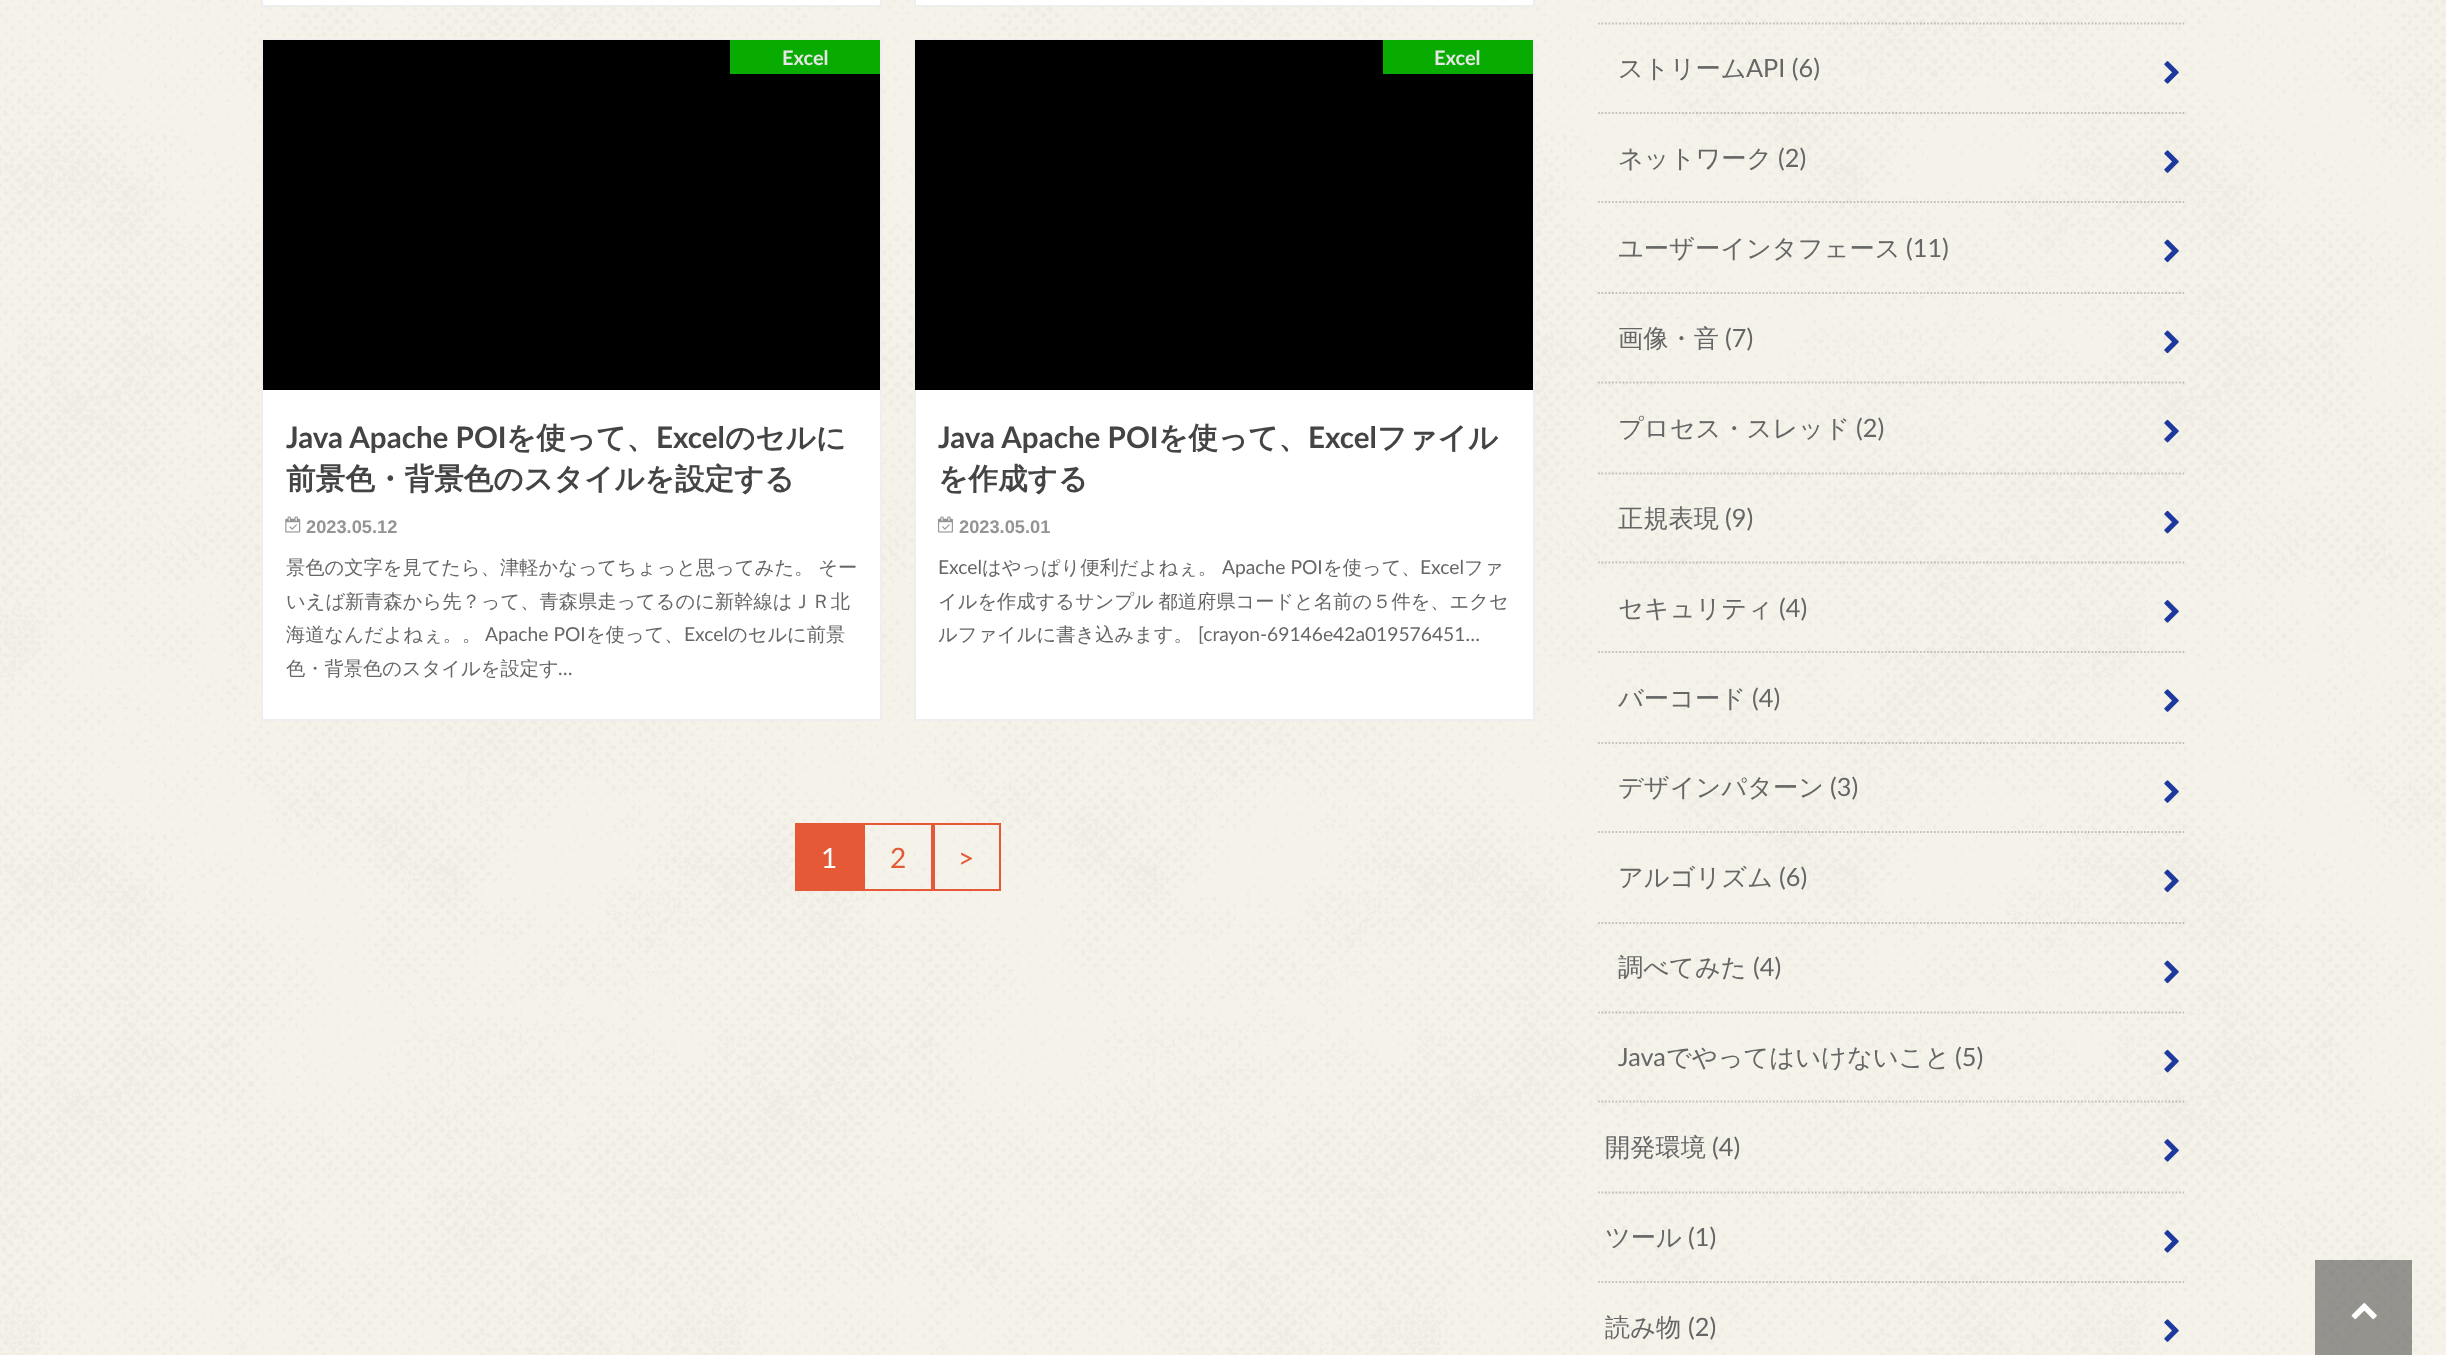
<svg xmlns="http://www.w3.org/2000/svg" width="2446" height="1355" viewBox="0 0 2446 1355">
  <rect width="100%" height="100%" fill="#fff"/>
  <image x="0" y="0" width="2446" height="1355" href="img/1.png"/>
  <path d="M262 -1h619v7H262z" fill="#fff" stroke="#eee" stroke-width="2"/>
  <path d="M915 -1h619v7H915z" fill="#fff" stroke="#eee" stroke-width="2"/>
  <path d="M263 390h617v329H263z" fill="#fff"/>
  <path d="M262 40h619v680H262z" fill="none" stroke="#eee" stroke-width="2"/>
  <path d="M263 40h617v350H263z" fill="#000"/>
  <path d="M730 40h150v34H730z" fill="#08ac00"/>
  <image x="285" y="516" width="16" height="17" href="img/2.png"/>
  <path d="M916 390h617v329H916z" fill="#fff"/>
  <path d="M915 40h619v680H915z" fill="none" stroke="#eee" stroke-width="2"/>
  <path d="M915 40h618v350H915z" fill="#000"/>
  <path d="M1383 40h150v34H1383z" fill="#08ac00"/>
  <image x="938" y="516" width="15" height="17" href="img/3.png"/>
  <path d="M795 823h68v68H795z" fill="#e55937"/>
  <path d="M864 824h68v66H864z" fill="none" stroke="#e55937" stroke-width="2"/>
  <path d="M934 824h66v66H934z" fill="none" stroke="#e55937" stroke-width="2"/>
  <path d="M1598 1101.5H2186" fill="none" stroke="#00000033" stroke-width="1.8" stroke-dasharray="1.75 1.75"/>
  <path d="M1598 23.5H2186" fill="none" stroke="#00000033" stroke-width="1.8" stroke-dasharray="1.75 1.75"/>
  <path d="M1598 113H2186" fill="none" stroke="#00000033" stroke-width="1.8" stroke-dasharray="1.75 1.75"/>
  <image x="2164" y="61" width="15" height="23" href="img/4.png"/>
  <path d="M1598 202H2186" fill="none" stroke="#00000033" stroke-width="1.8" stroke-dasharray="1.75 1.75"/>
  <image x="2164" y="150" width="15" height="23" href="img/5.png"/>
  <path d="M1598 293H2186" fill="none" stroke="#00000033" stroke-width="1.8" stroke-dasharray="1.75 1.75"/>
  <image x="2164" y="239" width="15" height="24" href="img/6.png"/>
  <path d="M1598 382.5H2186" fill="none" stroke="#00000033" stroke-width="1.8" stroke-dasharray="1.75 1.75"/>
  <image x="2164" y="330" width="15" height="24" href="img/7.png"/>
  <path d="M1598 473.5H2186" fill="none" stroke="#00000033" stroke-width="1.8" stroke-dasharray="1.75 1.75"/>
  <image x="2164" y="419" width="15" height="24" href="img/8.png"/>
  <path d="M1598 562.5H2186" fill="none" stroke="#00000033" stroke-width="1.8" stroke-dasharray="1.75 1.75"/>
  <image x="2164" y="510" width="15" height="24" href="img/9.png"/>
  <path d="M1598 652H2186" fill="none" stroke="#00000033" stroke-width="1.8" stroke-dasharray="1.75 1.75"/>
  <image x="2164" y="600" width="15" height="23" href="img/10.png"/>
  <path d="M1598 743H2186" fill="none" stroke="#00000033" stroke-width="1.8" stroke-dasharray="1.75 1.75"/>
  <image x="2164" y="689" width="15" height="23" href="img/11.png"/>
  <path d="M1598 832H2186" fill="none" stroke="#00000033" stroke-width="1.8" stroke-dasharray="1.75 1.75"/>
  <image x="2164" y="780" width="15" height="23" href="img/12.png"/>
  <path d="M1598 923H2186" fill="none" stroke="#00000033" stroke-width="1.8" stroke-dasharray="1.75 1.75"/>
  <image x="2164" y="869" width="15" height="24" href="img/13.png"/>
  <path d="M1598 1012.5H2186" fill="none" stroke="#00000033" stroke-width="1.8" stroke-dasharray="1.75 1.75"/>
  <image x="2164" y="960" width="15" height="24" href="img/14.png"/>
  <image x="2164" y="1049" width="15" height="24" href="img/15.png"/>
  <path d="M1598 1192.5H2186" fill="none" stroke="#00000033" stroke-width="1.8" stroke-dasharray="1.75 1.75"/>
  <image x="2164" y="1139" width="15" height="23" href="img/16.png"/>
  <path d="M1598 1282H2186" fill="none" stroke="#00000033" stroke-width="1.8" stroke-dasharray="1.75 1.75"/>
  <image x="2164" y="1230" width="15" height="23" href="img/17.png"/>
  <image x="2164" y="1319" width="15" height="23" href="img/18.png"/>
  <path d="M2315 1260h97v95H2315z" fill="#33333380"/>
  <image x="2351" y="1303" width="26" height="17" href="img/19.png"/>
  <text x="782" y="65" font-family="Lato" font-size="20" font-weight="bold" fill="#e6e6e6">Excel</text>
  <text x="286" y="448" font-family="Lato" font-size="29.6" font-weight="bold" fill="#444">Java Apache POI</text>
  <text x="506" y="448" font-family="WenQuanYi Zen Hei" font-size="29.6" font-weight="bold" fill="#444">を使って、</text>
  <text x="656" y="448" font-family="Lato" font-size="29.6" font-weight="bold" fill="#444">Excel</text>
  <g font-family="WenQuanYi Zen Hei" font-size="29.6" font-weight="bold" fill="#444">
    <text x="725" y="448">のセルに</text>
    <text x="286" y="489">前景色・背景色のスタイルを設定する</text>
  </g>
  <text x="306" y="533" font-family="Liberation Sans" font-size="18.25" font-weight="bold" fill="#949494">2023.05.12</text>
  <g font-family="WenQuanYi Zen Hei" font-size="19.25" font-weight="500" fill="#666">
    <text x="286" y="574" word-spacing="-1">景色の文字を見てたら、津軽かなってちょっと思ってみた。 そー</text>
    <text x="286" y="608">いえば新青森から先？って、青森県走ってるのに新幹線はＪＲ北</text>
    <text x="286" y="641">海道なんだよねぇ。。</text>
  </g>
  <text x="485" y="641" font-family="Lato" font-size="19.25" fill="#666">Apache POI</text>
  <text x="586" y="641" font-family="WenQuanYi Zen Hei" font-size="19.25" font-weight="500" fill="#666">を使って、</text>
  <text x="684" y="641" font-family="Lato" font-size="19.25" fill="#666">Excel</text>
  <g font-family="WenQuanYi Zen Hei" font-size="19.25" font-weight="500" fill="#666">
    <text x="728" y="641">のセルに前景</text>
    <text x="286" y="675">色・背景色のスタイルを設定す</text>
  </g>
  <text x="558" y="675" font-family="Lato" font-size="19.25" fill="#666">…</text>
  <text x="1434" y="65" font-family="Lato" font-size="20" font-weight="bold" fill="#e6e6e6">Excel</text>
  <text x="938" y="448" font-family="Lato" font-size="29.6" font-weight="bold" fill="#444">Java Apache POI</text>
  <text x="1158" y="448" font-family="WenQuanYi Zen Hei" font-size="29.6" font-weight="bold" fill="#444">を使って、</text>
  <text x="1308" y="448" font-family="Lato" font-size="29.6" font-weight="bold" fill="#444">Excel</text>
  <g font-family="WenQuanYi Zen Hei" font-size="29.6" font-weight="bold" fill="#444">
    <text x="1377" y="448">ファイル</text>
    <text x="938" y="489">を作成する</text>
  </g>
  <text x="959" y="533" font-family="Liberation Sans" font-size="18.25" font-weight="bold" fill="#949494">2023.05.01</text>
  <text x="938" y="574" font-family="Lato" font-size="19.25" fill="#666">Excel</text>
  <text x="982" y="574" font-family="WenQuanYi Zen Hei" font-size="19.25" font-weight="500" fill="#666">はやっぱり便利だよねぇ。</text>
  <text x="1222" y="574" font-family="Lato" font-size="19.25" fill="#666">Apache POI</text>
  <text x="1323" y="574" font-family="WenQuanYi Zen Hei" font-size="19.25" font-weight="500" fill="#666">を使って、</text>
  <text x="1420" y="574" font-family="Lato" font-size="19.25" fill="#666">Excel</text>
  <g font-family="WenQuanYi Zen Hei" font-size="19.25" font-weight="500" fill="#666">
    <text x="1464" y="574">ファ</text>
    <text x="938" y="608" word-spacing="-1">イルを作成するサンプル 都道府県コードと名前の５件を、エクセ</text>
    <text x="938" y="641">ルファイルに書き込みます。</text>
  </g>
  <text x="1198" y="641" font-family="Lato" font-size="19.25" fill="#666">[crayon-69146e42a019576451…</text>
  <text x="821" y="868" font-family="Lato" font-size="28" fill="#fff">1</text>
  <g font-family="Lato" font-size="28" fill="#e55937">
    <text x="890" y="868">2</text>
    <text x="958" y="868">&gt;</text>
  </g>
  <text x="1618" y="77" font-family="WenQuanYi Zen Hei" font-size="25.25" font-weight="500" fill="#666">ストリーム</text>
  <text x="1746" y="77" font-family="Lato" font-size="25.25" fill="#666">API (6)</text>
  <text x="1618" y="167" font-family="WenQuanYi Zen Hei" font-size="25.25" font-weight="500" fill="#666">ネットワーク</text>
  <text x="1778" y="167" font-family="Lato" font-size="25.25" fill="#666">(2)</text>
  <text x="1618" y="257" font-family="WenQuanYi Zen Hei" font-size="25.25" font-weight="500" fill="#666">ユーザーインタフェース</text>
  <text x="1906" y="257" font-family="Lato" font-size="25.25" fill="#666">(11)</text>
  <text x="1618" y="347" font-family="WenQuanYi Zen Hei" font-size="25.25" font-weight="500" fill="#666">画像・音</text>
  <text x="1725" y="347" font-family="Lato" font-size="25.25" fill="#666">(7)</text>
  <text x="1618" y="437" font-family="WenQuanYi Zen Hei" font-size="25.25" font-weight="500" fill="#666">プロセス・スレッド</text>
  <text x="1856" y="437" font-family="Lato" font-size="25.25" fill="#666">(2)</text>
  <text x="1618" y="527" font-family="WenQuanYi Zen Hei" font-size="25.25" font-weight="500" fill="#666">正規表現</text>
  <text x="1725" y="527" font-family="Lato" font-size="25.25" fill="#666">(9)</text>
  <text x="1618" y="617" font-family="WenQuanYi Zen Hei" font-size="25.25" font-weight="500" fill="#666">セキュリティ</text>
  <text x="1779" y="617" font-family="Lato" font-size="25.25" fill="#666">(4)</text>
  <text x="1618" y="707" font-family="WenQuanYi Zen Hei" font-size="25.25" font-weight="500" fill="#666">バーコード</text>
  <text x="1752" y="707" font-family="Lato" font-size="25.25" fill="#666">(4)</text>
  <text x="1618" y="796" font-family="WenQuanYi Zen Hei" font-size="25.25" font-weight="500" fill="#666">デザインパターン</text>
  <text x="1830" y="796" font-family="Lato" font-size="25.25" fill="#666">(3)</text>
  <text x="1618" y="886" font-family="WenQuanYi Zen Hei" font-size="25.25" font-weight="500" fill="#666">アルゴリズム</text>
  <text x="1779" y="886" font-family="Lato" font-size="25.25" fill="#666">(6)</text>
  <text x="1618" y="976" font-family="WenQuanYi Zen Hei" font-size="25.25" font-weight="500" fill="#666">調べてみた</text>
  <g font-family="Lato" font-size="25.25" fill="#666">
    <text x="1753" y="976">(4)</text>
    <text x="1618" y="1066">Java</text>
  </g>
  <text x="1666" y="1066" font-family="WenQuanYi Zen Hei" font-size="25.25" font-weight="500" fill="#666">でやってはいけないこと</text>
  <text x="1955" y="1066" font-family="Lato" font-size="25.25" fill="#666">(5)</text>
  <text x="1605" y="1156" font-family="WenQuanYi Zen Hei" font-size="25.25" font-weight="500" fill="#666">開発環境</text>
  <text x="1712" y="1156" font-family="Lato" font-size="25.25" fill="#666">(4)</text>
  <text x="1605" y="1246" font-family="WenQuanYi Zen Hei" font-size="25.25" font-weight="500" fill="#666">ツール</text>
  <text x="1688" y="1246" font-family="Lato" font-size="25.25" fill="#666">(1)</text>
  <text x="1605" y="1336" font-family="WenQuanYi Zen Hei" font-size="25.25" font-weight="500" fill="#666">読み物</text>
  <text x="1688" y="1336" font-family="Lato" font-size="25.25" fill="#666">(2)</text>
</svg>
